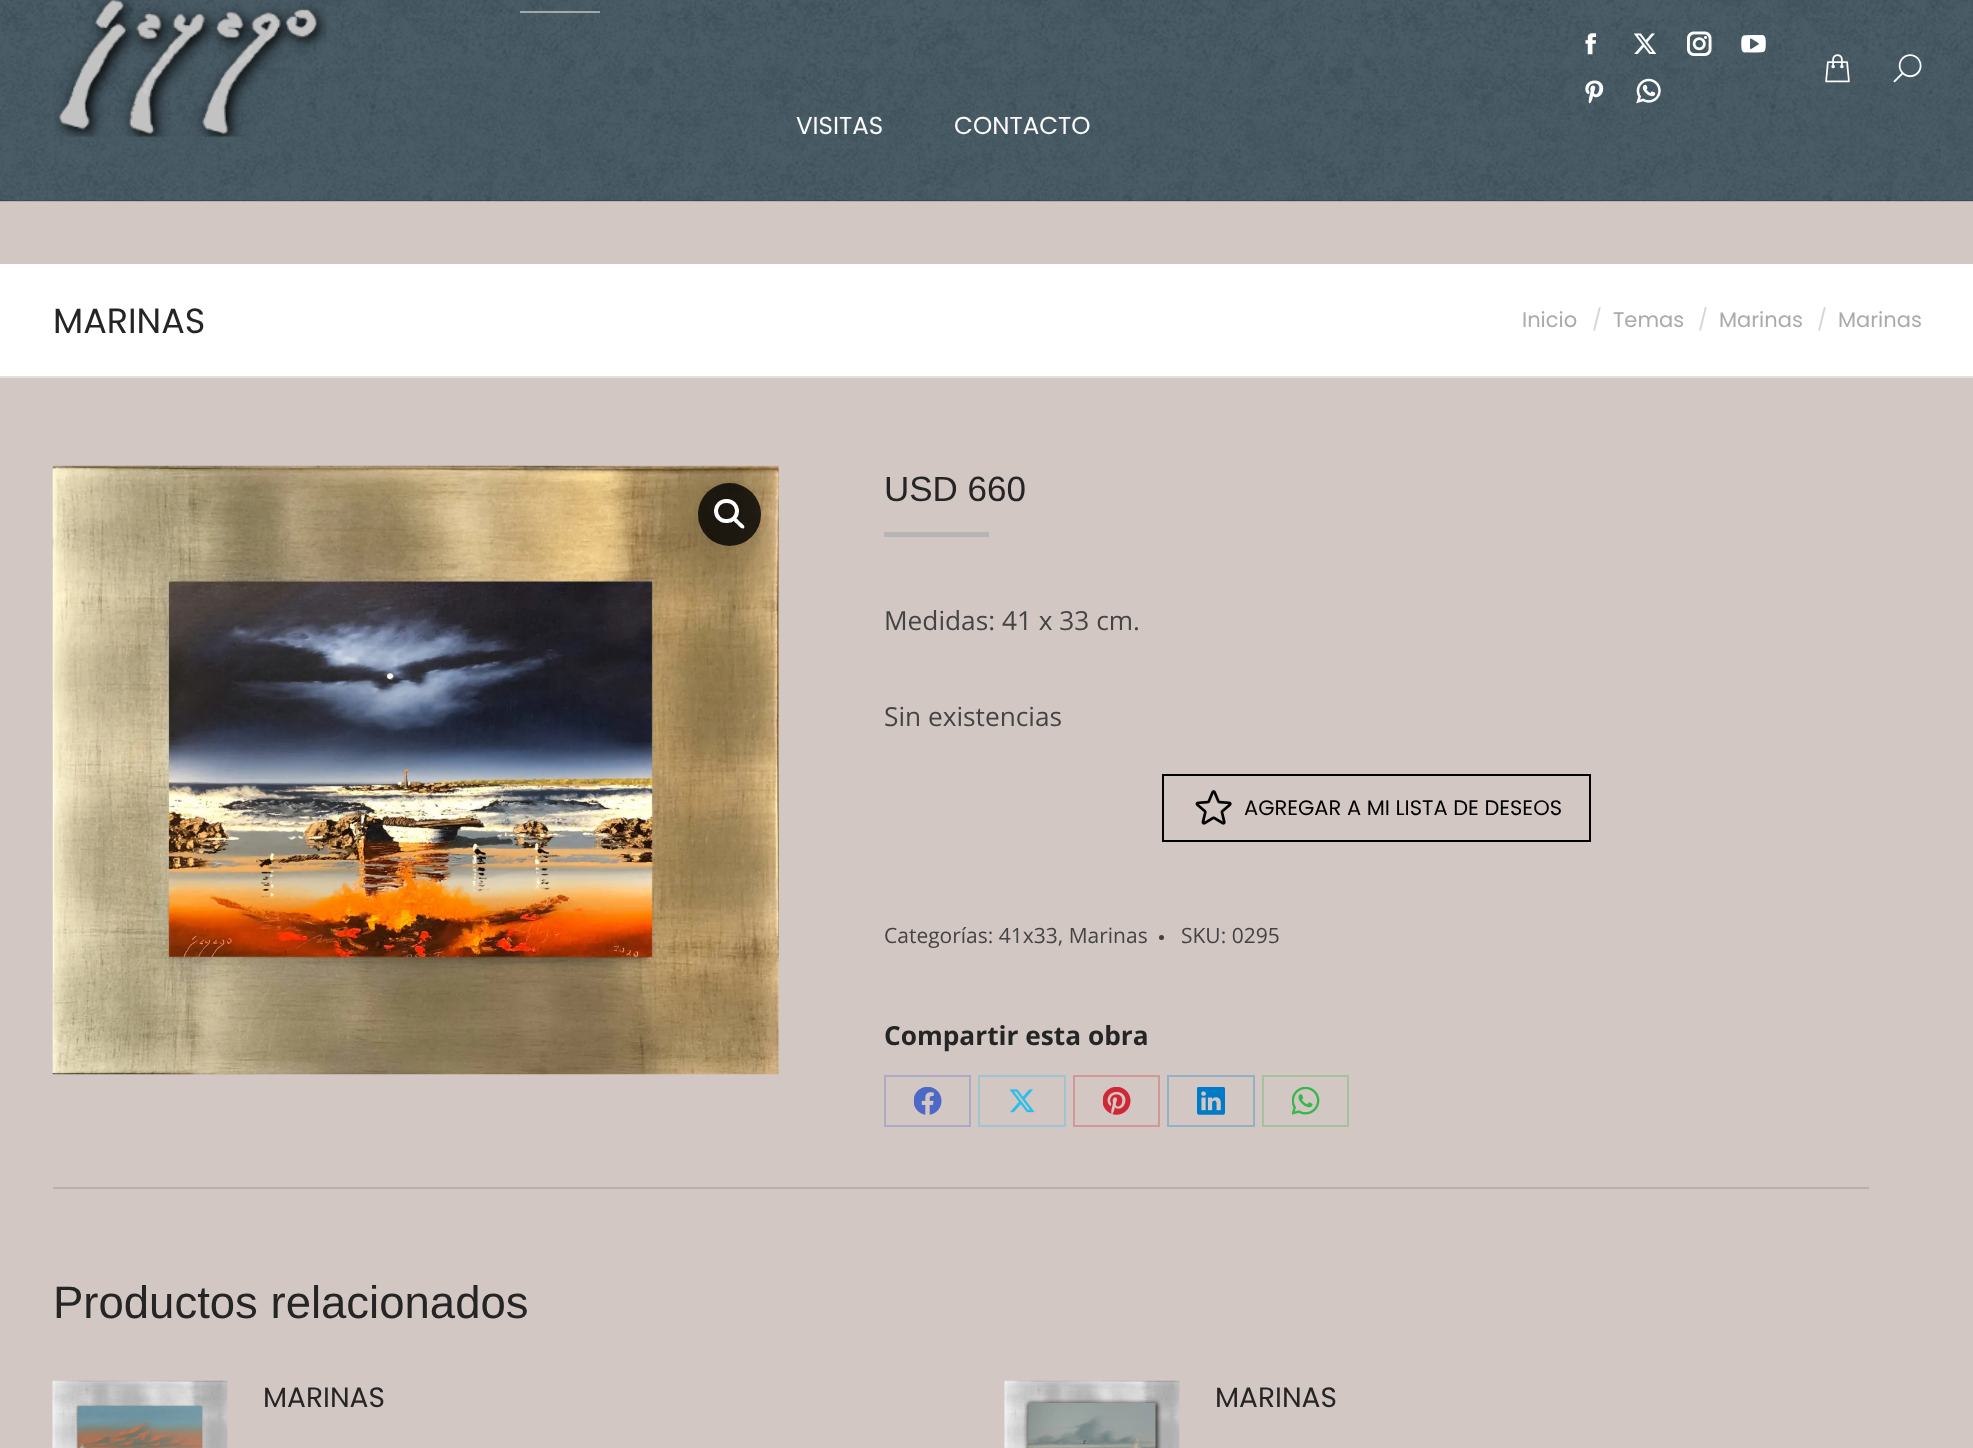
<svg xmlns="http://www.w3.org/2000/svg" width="1973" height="1448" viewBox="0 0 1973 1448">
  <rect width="100%" height="100%" fill="#d3c7c4"/>
  <path d="M0 0h1973v201H0z" fill="#364a55"/>
  <image x="0" y="0" width="1973" height="201" href="img/1.png"/>
  <path d="M0 200h1973v2H0z" fill="#0000001f"/>
  <image x="54" y="0" width="273" height="137" href="img/2.png"/>
  <image x="1585" y="33" width="12" height="22" href="img/3.png"/>
  <image x="1633" y="33" width="24" height="21" href="img/4.png"/>
  <image x="1687" y="31" width="25" height="25" href="img/5.png"/>
  <image x="1741" y="35" width="25" height="18" href="img/6.png"/>
  <image x="1585" y="80" width="19" height="24" href="img/7.png"/>
  <image x="1636" y="78" width="25" height="26" href="img/8.png"/>
  <image x="1825" y="54" width="25" height="29" href="img/9.png"/>
  <image x="1893" y="54" width="29" height="29" href="img/10.png"/>
  <path d="M520 11h80v2H520z" fill="#b5b5b5d9"/>
  <path d="M0 264h1973v112H0z" fill="#fff"/>
  <path d="M0 376h1973v2H0z" fill="#e0e0e0"/>
  <image x="52" y="465" width="727" height="610" href="img/11.png"/>
  <circle cx="729.5" cy="514.5" r="31.5" fill="#000000cc"/>
  <rect x="716" y="501" width="21" height="20" rx="10" fill="none" stroke="#fff" stroke-width="4"/>
  <path d="M734 518.5C736 516.5 739 521 740 522C741 523 746 526 744 528C742 530 738.5 525.5 737.5 524.5C736.5 523.5 732 520.5 734 518.5Z" fill="#fff"/>
  <path d="M884 532h105v5H884z" fill="#b5b5b5"/>
  <path d="M1163 775h427v66H1163z" fill="none" stroke="#000" stroke-width="2"/>
  <image x="1195" y="790" width="37" height="35" href="img/12.png"/>
  <circle cx="1161.5" cy="937.5" r="2.5" fill="#3f3f3f"/>
  <path d="M885 1076h85v50H885z" fill="none" stroke="#ababc5" stroke-width="2"/>
  <image x="914" y="1087" width="28" height="28" href="img/13.png"/>
  <path d="M979 1076h86v50H979z" fill="none" stroke="#a0c4d0" stroke-width="2"/>
  <image x="1009" y="1089" width="26" height="24" href="img/14.png"/>
  <path d="M1074 1076h85v50H1074z" fill="none" stroke="#d29799" stroke-width="2"/>
  <image x="1103" y="1087" width="28" height="28" href="img/15.png"/>
  <path d="M1168 1076h86v50H1168z" fill="none" stroke="#94b0c5" stroke-width="2"/>
  <image x="1197" y="1087" width="28" height="28" href="img/16.png"/>
  <path d="M1263 1076h85v50H1263z" fill="none" stroke="#a4c2a0" stroke-width="2"/>
  <image x="1292" y="1087" width="28" height="28" href="img/17.png"/>
  <path d="M53 1187h1816v2H53z" fill="#baafac"/>
  <image x="52" y="1380" width="176" height="68" href="img/18.png"/>
  <image x="1004" y="1380" width="176" height="68" href="img/19.png"/>
  <g font-family="Poppins" font-size="24.5" fill="#fcfcfc">
    <text x="796" y="134">VISITAS</text>
    <text x="954" y="134">CONTACTO</text>
  </g>
  <text x="53" y="333" font-family="Poppins" font-size="35" fill="#252525">MARINAS</text>
  <text x="1522" y="327" font-family="Poppins" font-size="21" fill="#aaa">Inicio</text>
  <text x="1592" y="327" font-family="Poppins" font-size="21" fill="#d5d5d5">/</text>
  <text x="1613" y="327" font-family="Poppins" font-size="21" fill="#aaa">Temas</text>
  <text x="1698" y="327" font-family="Poppins" font-size="21" fill="#d5d5d5">/</text>
  <text x="1719" y="327" font-family="Poppins" font-size="21" fill="#aaa">Marinas</text>
  <text x="1817" y="327" font-family="Poppins" font-size="21" fill="#d5d5d5">/</text>
  <text x="1838" y="327" font-family="Poppins" font-size="21" fill="#aaa">Marinas</text>
  <text x="884" y="501" font-family="Liberation Sans" font-size="35" fill="#252525">USD 660</text>
  <g font-family="Open Sans" font-size="26.25" fill="#444">
    <text x="884" y="630">Medidas: 41 x 33 cm.</text>
    <text x="884" y="726">Sin existencias</text>
  </g>
  <text x="1244" y="815" font-family="Poppins" font-size="21" fill="#000">AGREGAR A MI LISTA DE DESEOS</text>
  <g font-family="Open Sans" font-size="21" fill="#444">
    <text x="884" y="943">Categorías: 41x33, Marinas</text>
    <text x="1181" y="943">SKU: 0295</text>
  </g>
  <text x="884" y="1045" font-family="Open Sans" font-size="26.25" font-weight="bold" fill="#252525">Compartir esta obra</text>
  <text x="53" y="1318" font-family="Liberation Sans" font-size="45.5" fill="#252525">Productos relacionados</text>
  <g font-family="Poppins" font-size="28" fill="#252525">
    <text x="263" y="1407">MARINAS</text>
    <text x="1215" y="1407">MARINAS</text>
  </g>
</svg>
